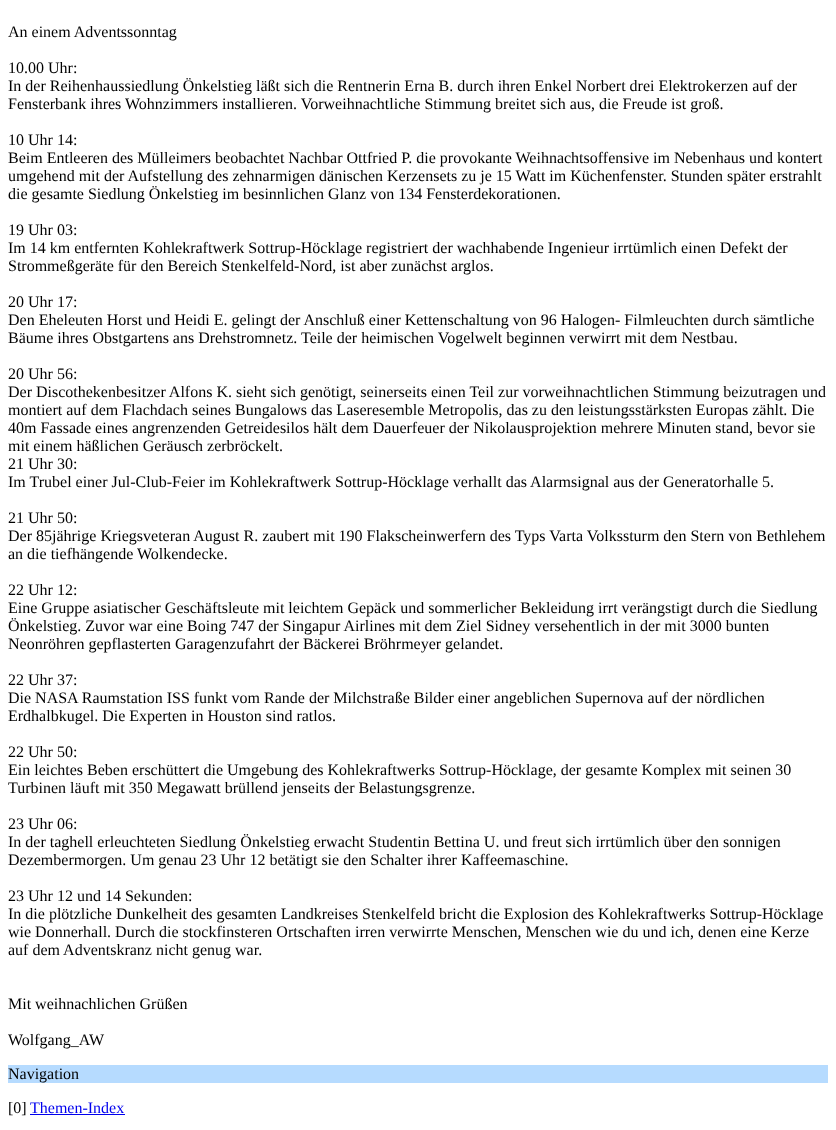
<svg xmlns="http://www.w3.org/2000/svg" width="836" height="1130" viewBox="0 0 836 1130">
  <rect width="100%" height="100%" fill="#fff"/>
  <path d="M8 1065h820v18H8z" fill="#b6dbff"/>
  <path d="M30 1114h95v1H30z" fill="#00e"/>
  <g font-family="Liberation Serif" font-size="16" fill="#000">
    <text x="8" y="37">An einem Adventssonntag</text>
    <text x="8" y="73">10.00 Uhr:</text>
    <text x="8" y="91">In der Reihenhaussiedlung Önkelstieg läßt sich die Rentnerin Erna B. durch ihren Enkel Norbert drei Elektrokerzen auf der</text>
    <text x="8" y="109">Fensterbank ihres Wohnzimmers installieren. Vorweihnachtliche Stimmung breitet sich aus, die Freude ist groß.</text>
    <text x="8" y="145">10 Uhr 14:</text>
    <text x="8" y="163">Beim Entleeren des Mülleimers beobachtet Nachbar Ottfried P. die provokante Weihnachtsoffensive im Nebenhaus und kontert</text>
    <text x="8" y="181">umgehend mit der Aufstellung des zehnarmigen dänischen Kerzensets zu je 15 Watt im Küchenfenster. Stunden später erstrahlt</text>
    <text x="8" y="199">die gesamte Siedlung Önkelstieg im besinnlichen Glanz von 134 Fensterdekorationen.</text>
    <text x="8" y="235">19 Uhr 03:</text>
    <text x="8" y="253">Im 14 km entfernten Kohlekraftwerk Sottrup-Höcklage registriert der wachhabende Ingenieur irrtümlich einen Defekt der</text>
    <text x="8" y="271">Strommeßgeräte für den Bereich Stenkelfeld-Nord, ist aber zunächst arglos.</text>
    <text x="8" y="307">20 Uhr 17:</text>
    <text x="8" y="325">Den Eheleuten Horst und Heidi E. gelingt der Anschluß einer Kettenschaltung von 96 Halogen- Filmleuchten durch sämtliche</text>
    <text x="8" y="343">Bäume ihres Obstgartens ans Drehstromnetz. Teile der heimischen Vogelwelt beginnen verwirrt mit dem Nestbau.</text>
    <text x="8" y="379">20 Uhr 56:</text>
    <text x="8" y="397">Der Discothekenbesitzer Alfons K. sieht sich genötigt, seinerseits einen Teil zur vorweihnachtlichen Stimmung beizutragen und</text>
    <text x="8" y="415">montiert auf dem Flachdach seines Bungalows das Laseresemble Metropolis, das zu den leistungsstärksten Europas zählt. Die</text>
    <text x="8" y="433">40m Fassade eines angrenzenden Getreidesilos hält dem Dauerfeuer der Nikolausprojektion mehrere Minuten stand, bevor sie</text>
    <text x="8" y="451">mit einem häßlichen Geräusch zerbröckelt.</text>
    <text x="8" y="469">21 Uhr 30:</text>
    <text x="8" y="487">Im Trubel einer Jul-Club-Feier im Kohlekraftwerk Sottrup-Höcklage verhallt das Alarmsignal aus der Generatorhalle 5.</text>
    <text x="8" y="523">21 Uhr 50:</text>
    <text x="8" y="541">Der 85jährige Kriegsveteran August R. zaubert mit 190 Flakscheinwerfern des Typs Varta Volkssturm den Stern von Bethlehem</text>
    <text x="8" y="559">an die tiefhängende Wolkendecke.</text>
    <text x="8" y="595">22 Uhr 12:</text>
    <text x="8" y="613">Eine Gruppe asiatischer Geschäftsleute mit leichtem Gepäck und sommerlicher Bekleidung irrt verängstigt durch die Siedlung</text>
    <text x="8" y="631">Önkelstieg. Zuvor war eine Boing 747 der Singapur Airlines mit dem Ziel Sidney versehentlich in der mit 3000 bunten</text>
    <text x="8" y="649">Neonröhren gepflasterten Garagenzufahrt der Bäckerei Bröhrmeyer gelandet.</text>
    <text x="8" y="685">22 Uhr 37:</text>
    <text x="8" y="703">Die NASA Raumstation ISS funkt vom Rande der Milchstraße Bilder einer angeblichen Supernova auf der nördlichen</text>
    <text x="8" y="721">Erdhalbkugel. Die Experten in Houston sind ratlos.</text>
    <text x="8" y="757">22 Uhr 50:</text>
    <text x="8" y="775">Ein leichtes Beben erschüttert die Umgebung des Kohlekraftwerks Sottrup-Höcklage, der gesamte Komplex mit seinen 30</text>
    <text x="8" y="793">Turbinen läuft mit 350 Megawatt brüllend jenseits der Belastungsgrenze.</text>
    <text x="8" y="829">23 Uhr 06:</text>
    <text x="8" y="847">In der taghell erleuchteten Siedlung Önkelstieg erwacht Studentin Bettina U. und freut sich irrtümlich über den sonnigen</text>
    <text x="8" y="865">Dezembermorgen. Um genau 23 Uhr 12 betätigt sie den Schalter ihrer Kaffeemaschine.</text>
    <text x="8" y="901">23 Uhr 12 und 14 Sekunden:</text>
    <text x="8" y="919">In die plötzliche Dunkelheit des gesamten Landkreises Stenkelfeld bricht die Explosion des Kohlekraftwerks Sottrup-Höcklage</text>
    <text x="8" y="937">wie Donnerhall. Durch die stockfinsteren Ortschaften irren verwirrte Menschen, Menschen wie du und ich, denen eine Kerze</text>
    <text x="8" y="955">auf dem Adventskranz nicht genug war.</text>
    <text x="8" y="1009">Mit weihnachlichen Grüßen</text>
    <text x="8" y="1045">Wolfgang_AW</text>
    <text x="8" y="1079">Navigation</text>
    <text x="8" y="1113">[0]</text>
  </g>
  <text x="30" y="1113" font-family="Liberation Serif" font-size="16" fill="#00e">Themen-Index</text>
</svg>
